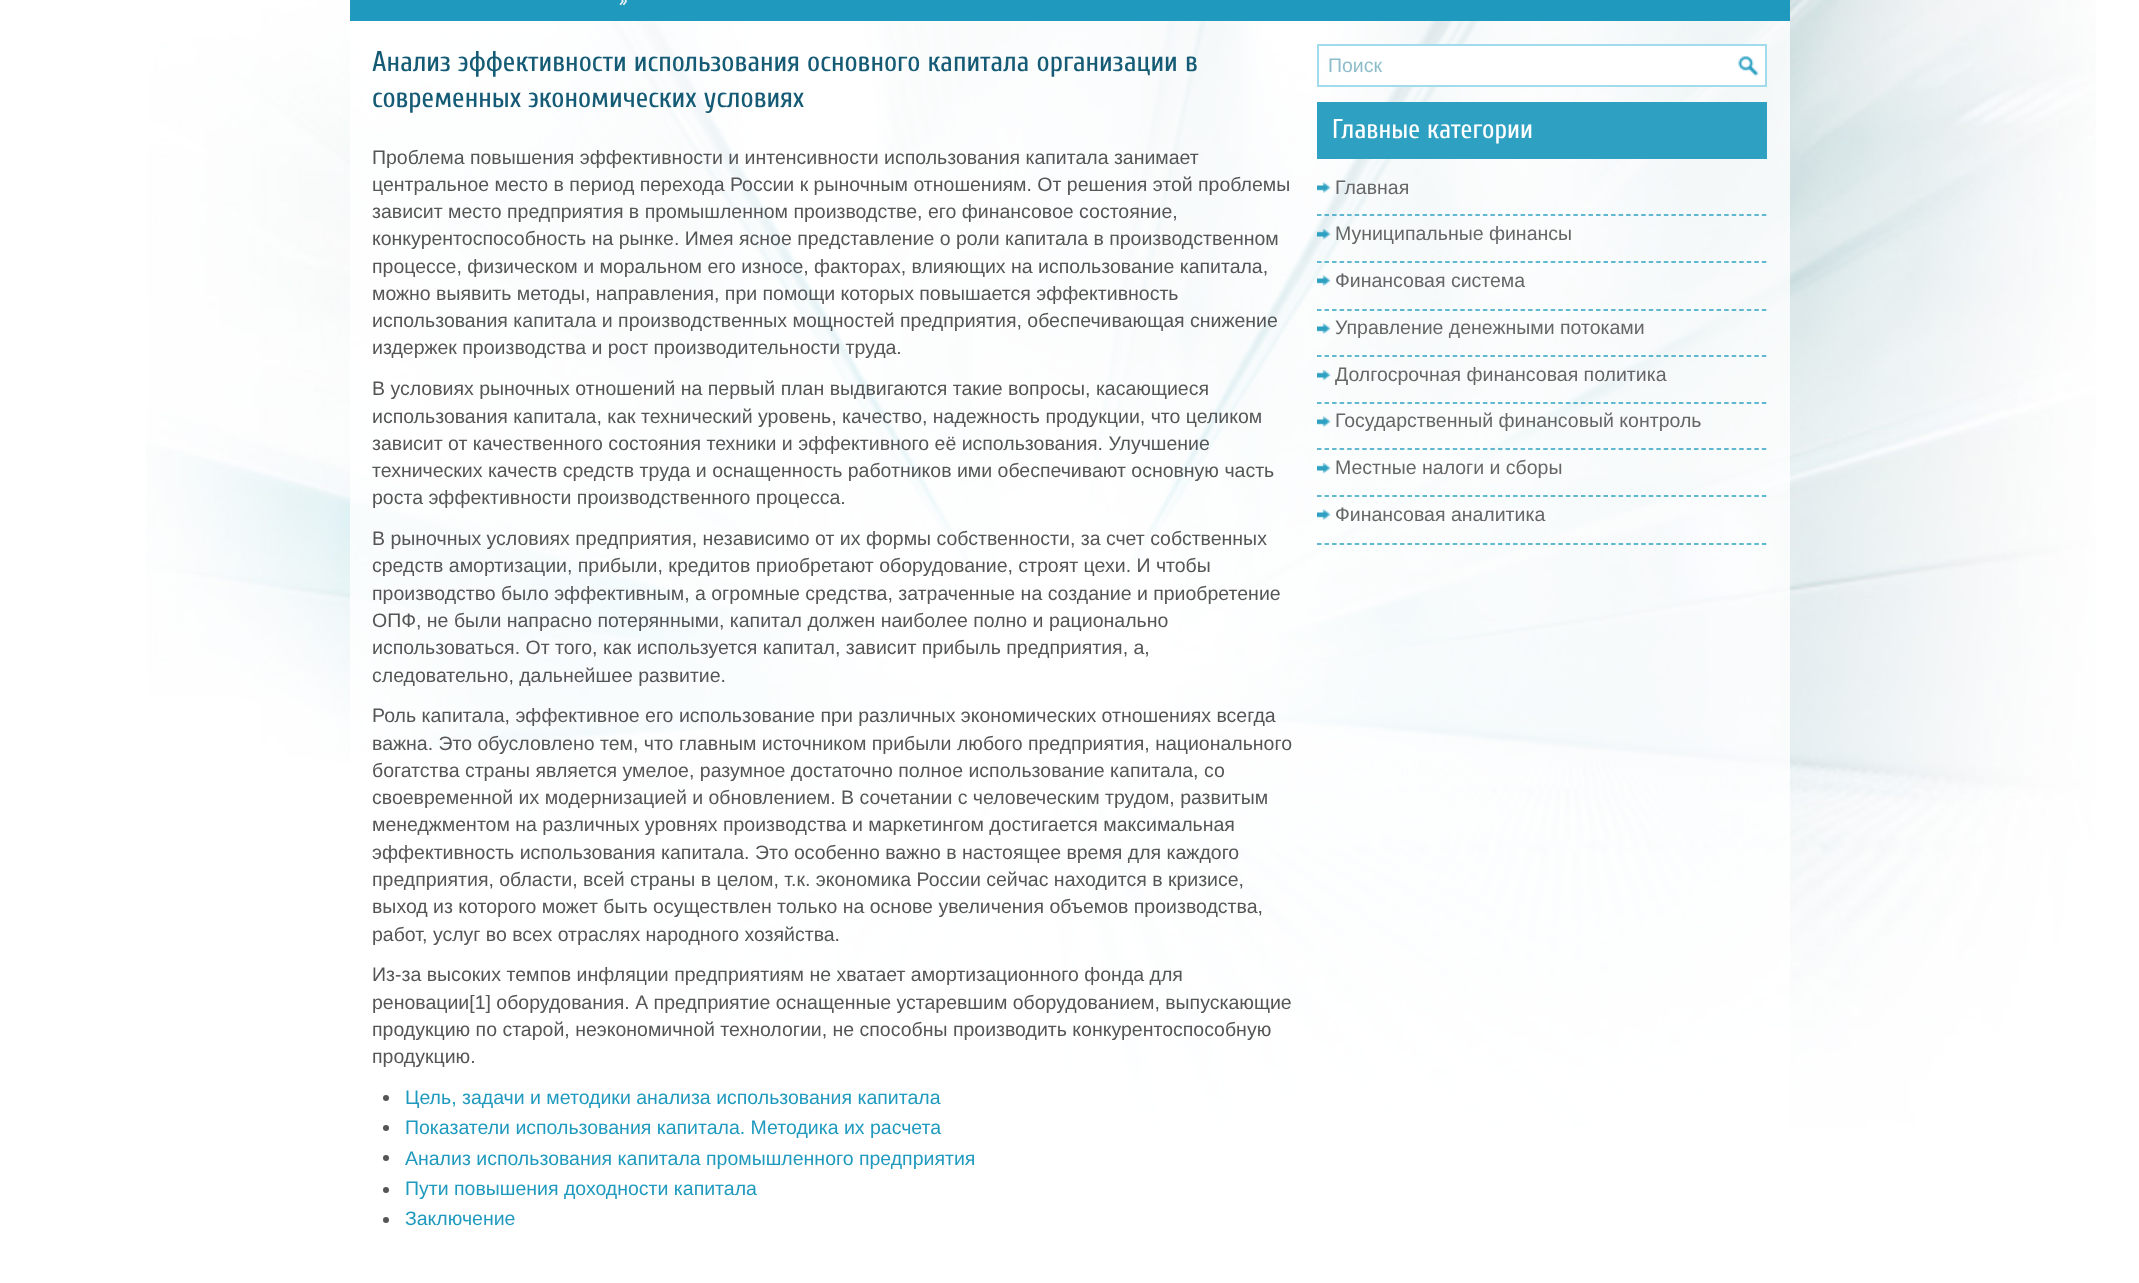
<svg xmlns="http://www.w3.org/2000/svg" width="2139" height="1283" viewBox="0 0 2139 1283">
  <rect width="100%" height="100%" fill="#fff"/>
  <image x="146" y="0" width="1950" height="1129" href="img/1.png"/>
  <path d="M350 0h1440v21H350z" fill="#1f9abe"/>
  <path d="M350 21h1440v1108H350z" fill="#ffffffcc"/>
  <circle cx="386" cy="1098" r="3" fill="#555"/>
  <circle cx="386" cy="1128" r="3" fill="#555"/>
  <circle cx="386" cy="1158" r="3" fill="#555"/>
  <circle cx="386" cy="1190" r="3" fill="#555"/>
  <circle cx="386" cy="1220" r="3" fill="#555"/>
  <path d="M1336 46h429v39H1336z" fill="#fff"/>
  <image x="1738" y="56" width="21" height="21" href="img/2.png"/>
  <path d="M1318 45h448v41H1318z" fill="none" stroke="#a1dbec" stroke-width="2"/>
  <path d="M1317 102h450v57H1317z" fill="#2ea1c2"/>
  <image x="1317" y="182" width="14" height="11" href="img/3.png"/>
  <path d="M1317 215H1767" fill="none" stroke="#2ea1c2" stroke-width="1.5" stroke-dasharray="4.5 3.04"/>
  <image x="1317" y="229" width="14" height="11" href="img/4.png"/>
  <path d="M1317 262H1767" fill="none" stroke="#2ea1c2" stroke-width="1.5" stroke-dasharray="4.5 3.04"/>
  <image x="1317" y="275" width="14" height="11" href="img/5.png"/>
  <path d="M1317 310H1767" fill="none" stroke="#2ea1c2" stroke-width="1.5" stroke-dasharray="4.5 3.04"/>
  <image x="1317" y="323" width="14" height="11" href="img/6.png"/>
  <path d="M1317 356H1767" fill="none" stroke="#2ea1c2" stroke-width="1.5" stroke-dasharray="4.5 3.04"/>
  <image x="1317" y="370" width="14" height="11" href="img/7.png"/>
  <path d="M1317 403H1767" fill="none" stroke="#2ea1c2" stroke-width="1.5" stroke-dasharray="4.5 3.04"/>
  <image x="1317" y="416" width="14" height="11" href="img/8.png"/>
  <path d="M1317 449H1767" fill="none" stroke="#2ea1c2" stroke-width="1.5" stroke-dasharray="4.5 3.04"/>
  <image x="1317" y="463" width="14" height="11" href="img/9.png"/>
  <path d="M1317 496H1767" fill="none" stroke="#2ea1c2" stroke-width="1.5" stroke-dasharray="4.5 3.04"/>
  <image x="1317" y="509" width="14" height="11" href="img/10.png"/>
  <path d="M1317 544H1767" fill="none" stroke="#2ea1c2" stroke-width="1.5" stroke-dasharray="4.5 3.04"/>
  <text x="619" y="6" font-family="Cuprum" font-size="19.5" fill="#edf1f4">»</text>
  <g font-family="Cuprum" font-size="28.5" fill="#155b75">
    <text x="372" y="71">Анализ эффективности использования основного капитала организации в</text>
    <text x="372" y="107">современных экономических условиях</text>
  </g>
  <g font-family="Liberation Sans" font-size="19.5" fill="#555">
    <text x="372" y="164">Проблема повышения эффективности и интенсивности использования капитала занимает</text>
    <text x="372" y="191">центральное место в период перехода России к рыночным отношениям. От решения этой проблемы</text>
    <text x="372" y="218">зависит место предприятия в промышленном производстве, его финансовое состояние,</text>
    <text x="372" y="245">конкурентоспособность на рынке. Имея ясное представление о роли капитала в производственном</text>
    <text x="372" y="273">процессе, физическом и моральном его износе, факторах, влияющих на использование капитала,</text>
    <text x="372" y="300">можно выявить методы, направления, при помощи которых повышается эффективность</text>
    <text x="372" y="327">использования капитала и производственных мощностей предприятия, обеспечивающая снижение</text>
    <text x="372" y="354">издержек производства и рост производительности труда.</text>
    <text x="372" y="395">В условиях рыночных отношений на первый план выдвигаются такие вопросы, касающиеся</text>
    <text x="372" y="423">использования капитала, как технический уровень, качество, надежность продукции, что целиком</text>
    <text x="372" y="450">зависит от качественного состояния техники и эффективного её использования. Улучшение</text>
    <text x="372" y="477">технических качеств средств труда и оснащенность работников ими обеспечивают основную часть</text>
    <text x="372" y="504">роста эффективности производственного процесса.</text>
    <text x="372" y="545">В рыночных условиях предприятия, независимо от их формы собственности, за счет собственных</text>
    <text x="372" y="572">средств амортизации, прибыли, кредитов приобретают оборудование, строят цехи. И чтобы</text>
    <text x="372" y="600">производство было эффективным, а огромные средства, затраченные на создание и приобретение</text>
    <text x="372" y="627">ОПФ, не были напрасно потерянными, капитал должен наиболее полно и рационально</text>
    <text x="372" y="654">использоваться. От того, как используется капитал, зависит прибыль предприятия, а,</text>
    <text x="372" y="682">следовательно, дальнейшее развитие.</text>
    <text x="372" y="722">Роль капитала, эффективное его использование при различных экономических отношениях всегда</text>
    <text x="372" y="750">важна. Это обусловлено тем, что главным источником прибыли любого предприятия, национального</text>
    <text x="372" y="777">богатства страны является умелое, разумное достаточно полное использование капитала, со</text>
    <text x="372" y="804">своевременной их модернизацией и обновлением. В сочетании с человеческим трудом, развитым</text>
    <text x="372" y="831">менеджментом на различных уровнях производства и маркетингом достигается максимальная</text>
    <text x="372" y="859">эффективность использования капитала. Это особенно важно в настоящее время для каждого</text>
    <text x="372" y="886">предприятия, области, всей страны в целом, т.к. экономика России сейчас находится в кризисе,</text>
    <text x="372" y="913">выход из которого может быть осуществлен только на основе увеличения объемов производства,</text>
    <text x="372" y="941">работ, услуг во всех отраслях народного хозяйства.</text>
    <text x="372" y="981">Из-за высоких темпов инфляции предприятиям не хватает амортизационного фонда для</text>
    <text x="372" y="1009">реновации[1] оборудования. А предприятие оснащенные устаревшим оборудованием, выпускающие</text>
    <text x="372" y="1036">продукцию по старой, неэкономичной технологии, не способны производить конкурентоспособную</text>
    <text x="372" y="1063">продукцию.</text>
  </g>
  <g font-family="Liberation Sans" font-size="19.5" fill="#1f9abe">
    <text x="405" y="1104">Цель, задачи и методики анализа использования капитала</text>
    <text x="405" y="1134">Показатели использования капитала. Методика их расчета</text>
    <text x="405" y="1165">Анализ использования капитала промышленного предприятия</text>
    <text x="405" y="1195">Пути повышения доходности капитала</text>
    <text x="405" y="1225">Заключение</text>
  </g>
  <text x="1328" y="72" font-family="Liberation Sans" font-size="19.5" fill="#8dbdcb">Поиск</text>
  <text x="1332" y="138" font-family="Cuprum" font-size="27" fill="#fff">Главные категории</text>
  <g font-family="Liberation Sans" font-size="19.5" fill="#666">
    <text x="1335" y="194">Главная</text>
    <text x="1335" y="240">Муниципальные финансы</text>
    <text x="1335" y="287">Финансовая система</text>
    <text x="1335" y="334">Управление денежными потоками</text>
    <text x="1335" y="381">Долгосрочная финансовая политика</text>
    <text x="1335" y="427">Государственный финансовый контроль</text>
    <text x="1335" y="474">Местные налоги и сборы</text>
    <text x="1335" y="521">Финансовая аналитика</text>
  </g>
</svg>
